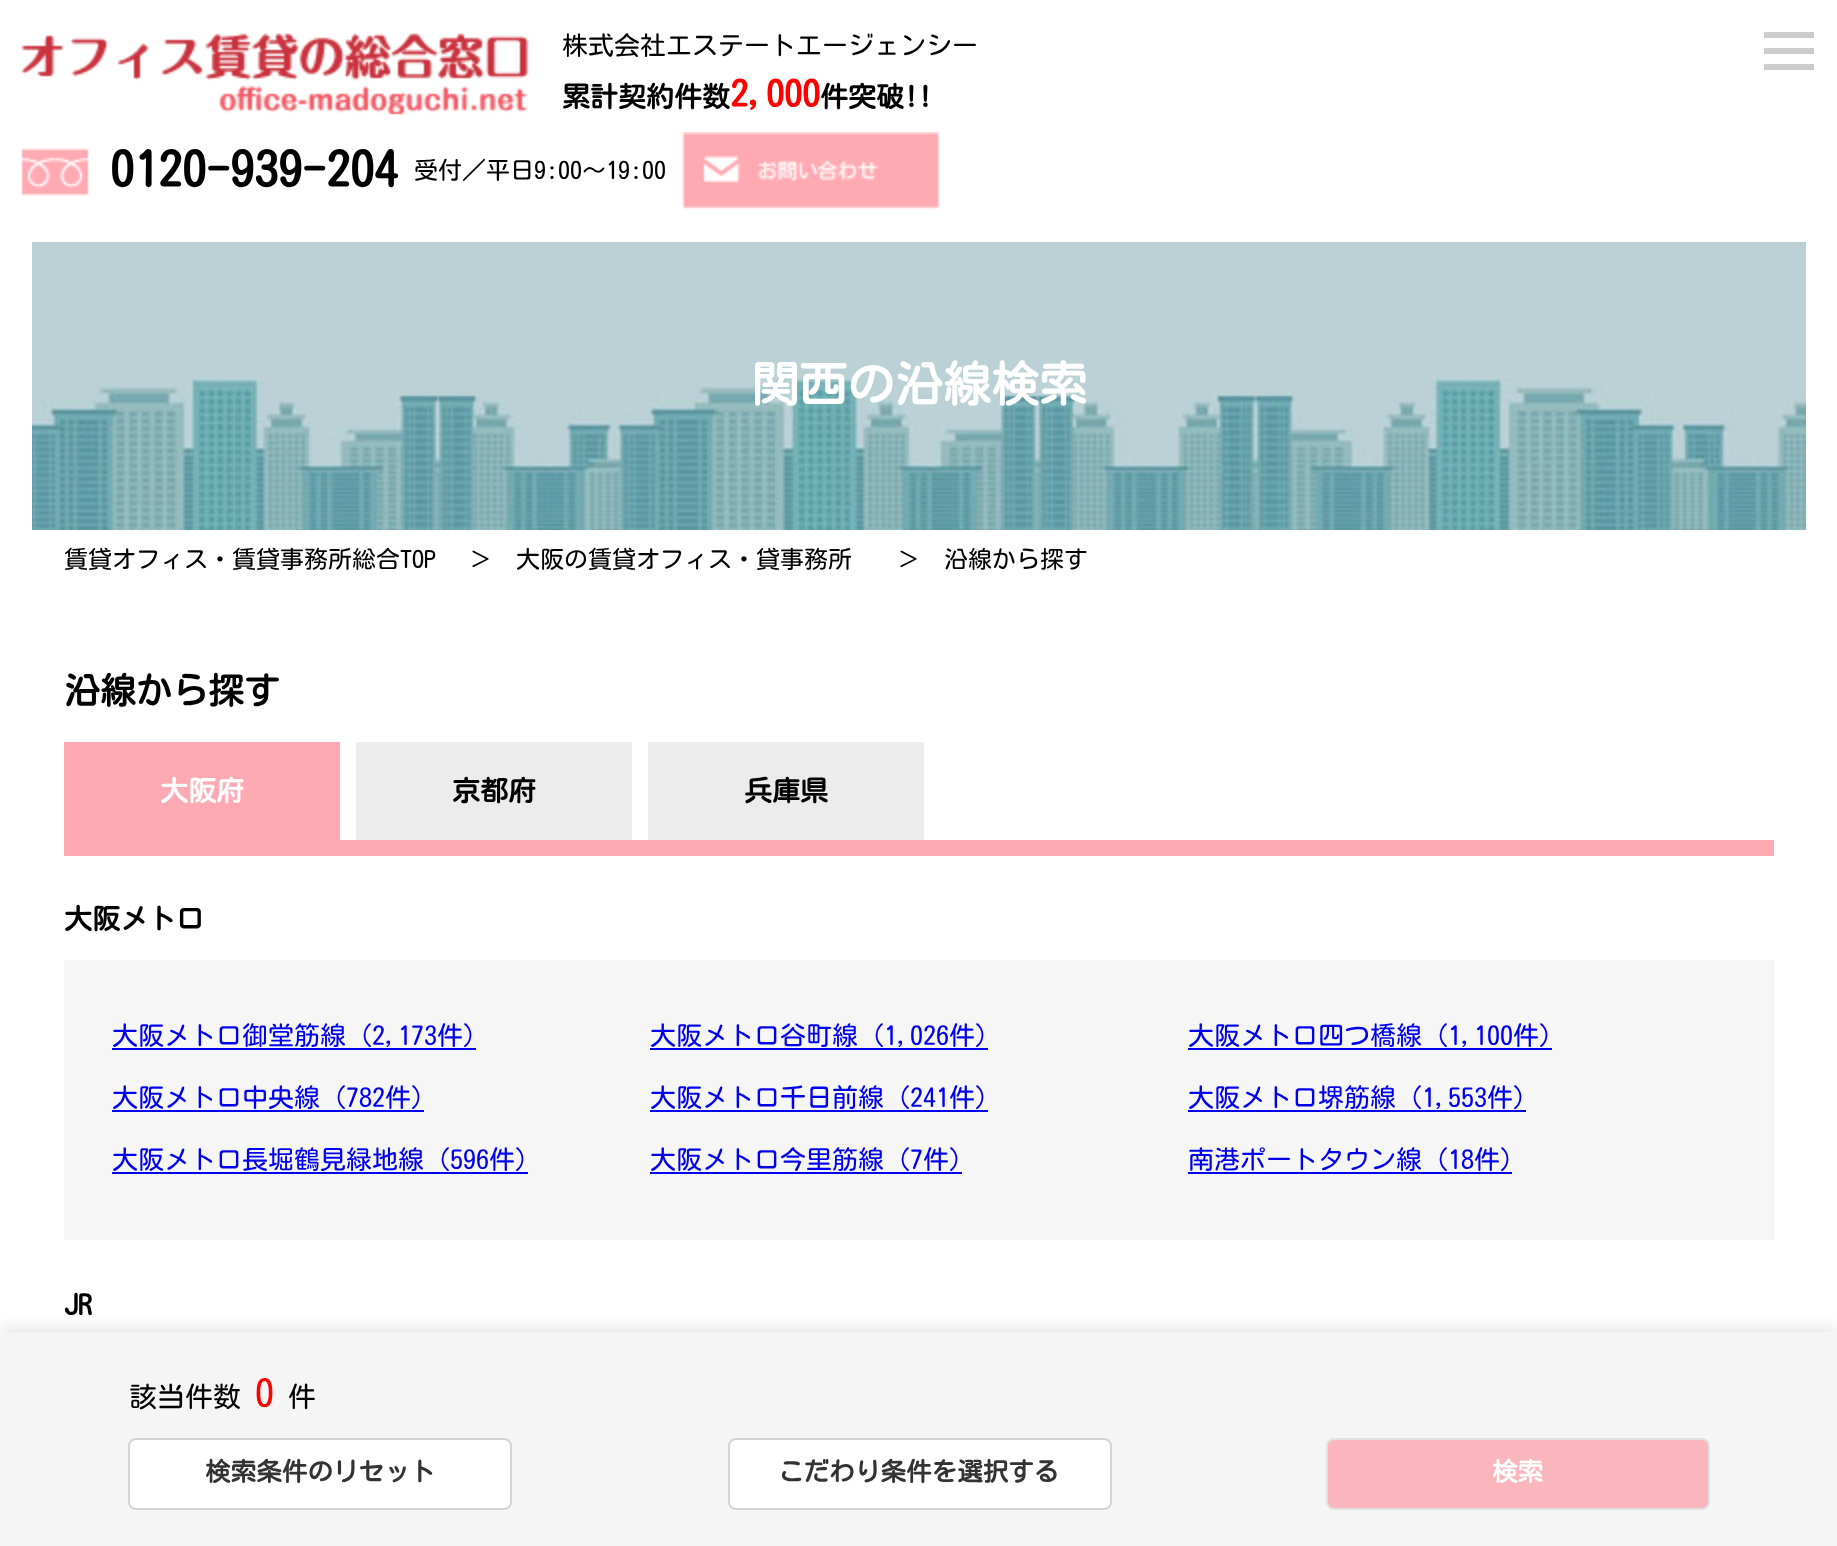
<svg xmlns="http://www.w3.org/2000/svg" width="1837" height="1546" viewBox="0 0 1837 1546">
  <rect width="100%" height="100%" fill="#fff"/>
  <image x="21" y="33" width="508" height="82" href="img/1.png"/>
  <image x="21" y="148" width="68" height="48" href="img/2.png"/>
  <image x="682" y="132" width="258" height="77" href="img/3.png"/>
  <path d="M1764 48h50v6H1764z" fill="#ccc"/>
  <path d="M1764 32h50v6H1764z" fill="#ccc"/>
  <path d="M1764 64h50v6H1764z" fill="#ccc"/>
  <image x="32" y="242" width="1774" height="288" href="img/4.png"/>
  <path d="M64 840h1710v16H64z" fill="#ffaab3"/>
  <path d="M64 742h276v98H64z" fill="#ffaab3"/>
  <path d="M356 742h276v98H356z" fill="#ececec"/>
  <path d="M648 742h276v98H648z" fill="#ececec"/>
  <path d="M64 960h1710v280H64z" fill="#f6f6f6"/>
  <path d="M112 1048h364v2H112z" fill="#00e"/>
  <path d="M650 1048h338v2H650z" fill="#00e"/>
  <path d="M1188 1048h364v2H1188z" fill="#00e"/>
  <path d="M112 1110h312v2H112z" fill="#00e"/>
  <path d="M650 1110h338v2H650z" fill="#00e"/>
  <path d="M1188 1110h338v2H1188z" fill="#00e"/>
  <path d="M112 1172h416v2H112z" fill="#00e"/>
  <path d="M650 1172h312v2H650z" fill="#00e"/>
  <path d="M1188 1172h324v2H1188z" fill="#00e"/>
  <path d="M0 1332h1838v214H0z" fill="#00000029" filter="blur(10px)"/>
  <path d="M0 1332h1837v214H0z" fill="#f5f5f5"/>
  <rect x="129" y="1439" width="382" height="70" rx="7" fill="#fff" stroke="#d3d3d3" stroke-width="2"/>
  <rect x="729" y="1439" width="382" height="70" rx="7" fill="#fff" stroke="#d3d3d3" stroke-width="2"/>
  <rect x="1327" y="1439" width="382" height="70" rx="7" fill="#fbb6bd" stroke="#e1e1e1" stroke-width="2"/>
  <text x="562" y="55" font-family="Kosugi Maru" font-size="26" fill="#000">株式会社エステートエージェンシー</text>
  <text x="562" y="107" font-family="Kosugi Maru" font-size="28" font-weight="bold" fill="#000">累計契約件数</text>
  <text x="730" y="107" font-family="Kosugi Maru" font-size="36" font-weight="bold" fill="#f00">2,000</text>
  <text x="820" y="107" font-family="Kosugi Maru" font-size="28" font-weight="bold" fill="#000">件突破!!</text>
  <text x="110" y="187" font-family="Kosugi Maru" font-size="48" font-weight="bold" fill="#000">0120-939-204</text>
  <text x="414" y="179" font-family="Kosugi Maru" font-size="24" fill="#000">受付／平日9:00～19:00</text>
  <text x="751" y="402" font-family="Kosugi Maru" font-size="48" font-weight="bold" fill="#fff">関西の沿線検索</text>
  <g font-family="Kosugi Maru" font-size="24" fill="#000">
    <text x="64" y="568">賃貸オフィス・賃貸事務所総合TOP</text>
    <text x="468" y="568">＞</text>
    <text x="516" y="568">大阪の賃貸オフィス・貸事務所</text>
    <text x="896" y="568">＞</text>
    <text x="944" y="568">沿線から探す</text>
  </g>
  <text x="64" y="704" font-family="Kosugi Maru" font-size="36" font-weight="bold" fill="#000">沿線から探す</text>
  <text x="160" y="801" font-family="Kosugi Maru" font-size="28" font-weight="bold" fill="#fff">大阪府</text>
  <g font-family="Kosugi Maru" font-size="28" font-weight="bold" fill="#000">
    <text x="452" y="801">京都府</text>
    <text x="744" y="801">兵庫県</text>
    <text x="64" y="929">大阪メトロ</text>
  </g>
  <g font-family="Kosugi Maru" font-size="26" fill="#00e">
    <text x="112" y="1045">大阪メトロ御堂筋線 (2,173件)</text>
    <text x="650" y="1045">大阪メトロ谷町線 (1,026件)</text>
    <text x="1188" y="1045">大阪メトロ四つ橋線 (1,100件)</text>
    <text x="112" y="1107">大阪メトロ中央線 (782件)</text>
    <text x="650" y="1107">大阪メトロ千日前線 (241件)</text>
    <text x="1188" y="1107">大阪メトロ堺筋線 (1,553件)</text>
    <text x="112" y="1169">大阪メトロ長堀鶴見緑地線 (596件)</text>
    <text x="650" y="1169">大阪メトロ今里筋線 (7件)</text>
    <text x="1188" y="1169">南港ポートタウン線 (18件)</text>
  </g>
  <text x="64" y="1315" font-family="Kosugi Maru" font-size="28" font-weight="bold" fill="#000">JR</text>
  <text x="129" y="1407" font-family="Kosugi Maru" font-size="28" fill="#000">該当件数</text>
  <text x="255" y="1407" font-family="Kosugi Maru" font-size="38" fill="#f00">0</text>
  <text x="288" y="1407" font-family="Kosugi Maru" font-size="28" fill="#000">件</text>
  <g font-family="Kosugi Maru" font-size="25.6" font-weight="bold" fill="#333">
    <text x="205" y="1481">検索条件のリセット</text>
    <text x="778" y="1481">こだわり条件を選択する</text>
  </g>
  <text x="1492" y="1481" font-family="Kosugi Maru" font-size="25.6" font-weight="bold" fill="#fff">検索</text>
</svg>
